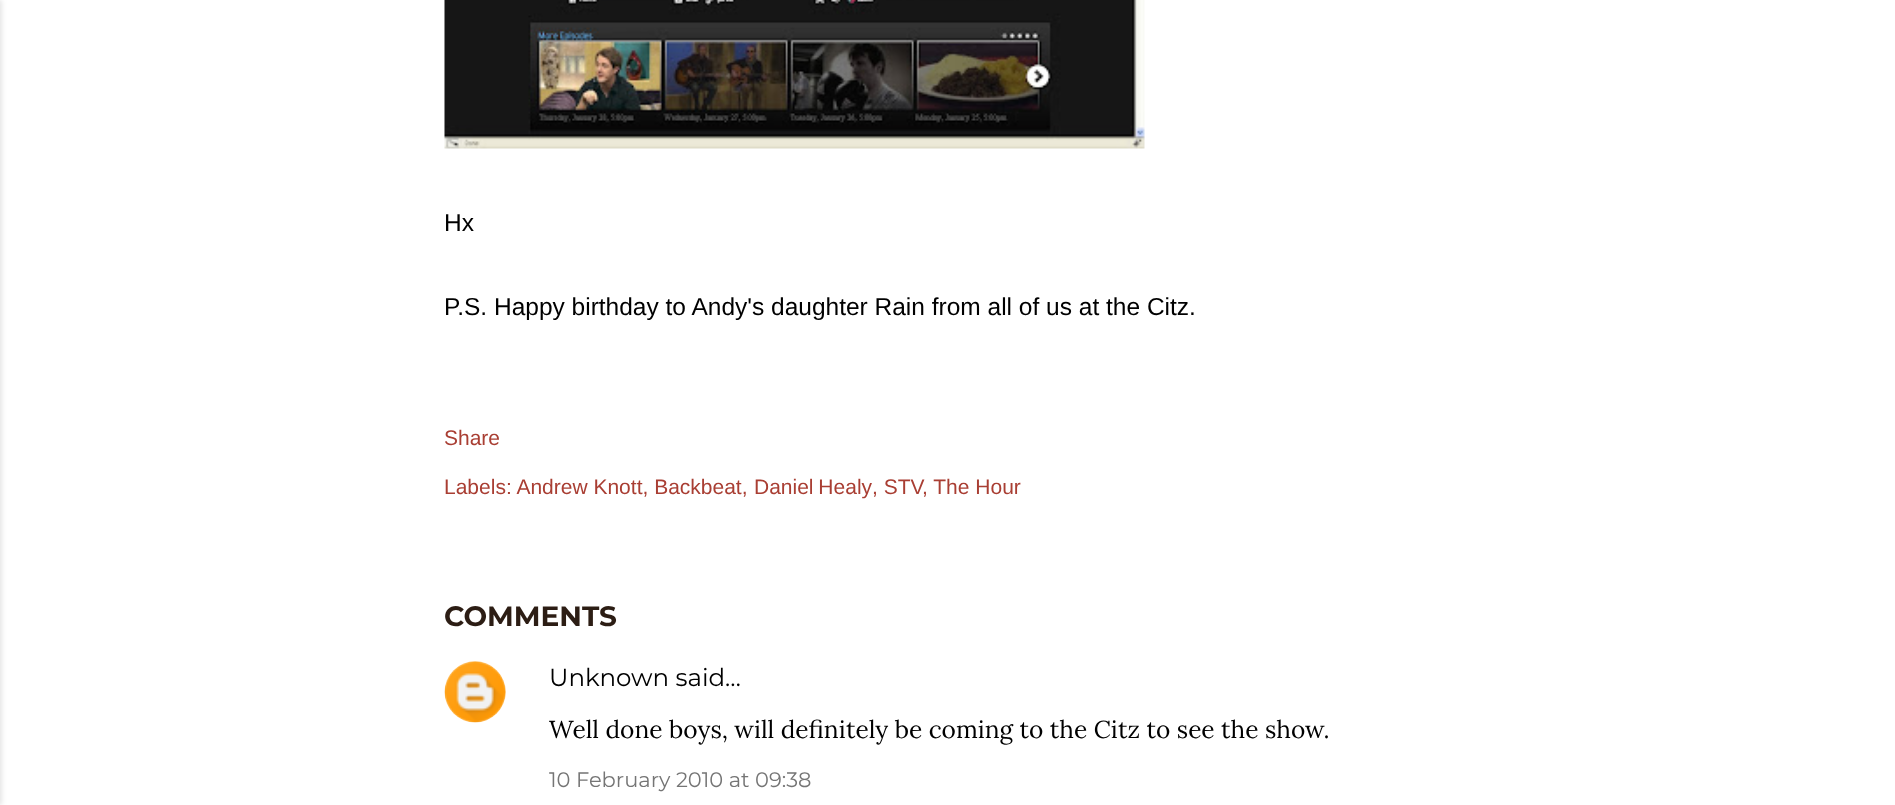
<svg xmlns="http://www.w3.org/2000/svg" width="1895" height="805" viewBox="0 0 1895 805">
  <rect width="100%" height="100%" fill="#fff"/>
  <path d="M-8 0h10v805H-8z" fill="#0000001a" filter="blur(2.5px)"/>
  <image x="444" y="0" width="701" height="149" href="img/1.png"/>
  <image x="444" y="661" width="62" height="62" href="img/2.png"/>
  <g font-family="Liberation Sans" font-size="24.5" fill="#000">
    <text x="444" y="231">Hx</text>
    <text x="444" y="315">P.S. Happy birthday to Andy's daughter Rain from all of us at the Citz.</text>
  </g>
  <g font-family="Liberation Sans" font-size="21" fill="#a93e33">
    <text x="444" y="445">Share</text>
    <text x="444" y="494">Labels: Andrew Knott, Backbeat,</text>
    <text x="754" y="494" word-spacing="-1">Daniel Healy</text>
    <text x="872" y="494">, STV</text>
    <text x="922" y="494">, The Hour</text>
  </g>
  <text x="444" y="626" font-family="Montserrat" font-size="28" font-weight="bold" fill="#2c1d14">COMMENTS</text>
  <text x="549" y="686" font-family="Montserrat" font-size="24.5" fill="#000">Unknown said…</text>
  <text x="549" y="738" font-family="Lora" font-size="24.5" fill="#000">Well done boys, will definitely be coming to the Citz to see the show.</text>
  <text x="549" y="787" font-family="Montserrat" font-size="21" fill="#757575">10 February 2010 at 09:38</text>
</svg>
